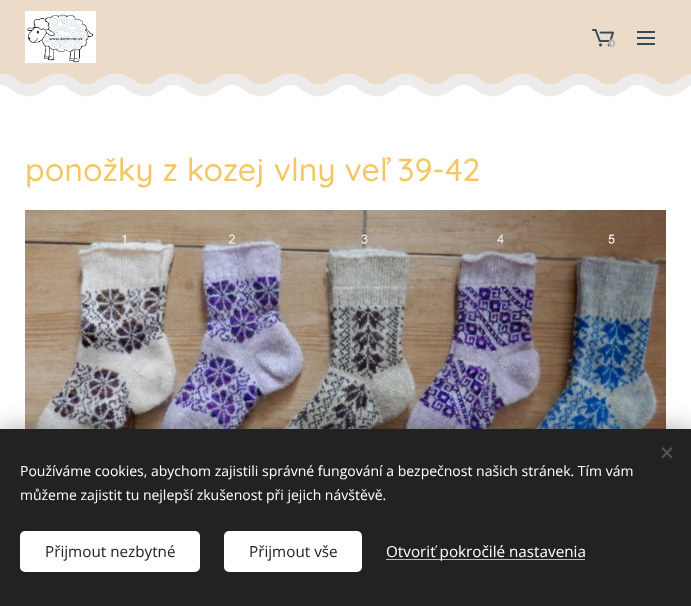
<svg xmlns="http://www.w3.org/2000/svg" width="691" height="606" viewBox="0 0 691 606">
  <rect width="100%" height="100%" fill="#fff"/>
  <path d="M0 0h691v84H0z" fill="#ebdbc8"/>
  <image x="25" y="11" width="71" height="52" href="img/1.png"/>
  <image x="592" y="29" width="22" height="18" href="img/2.png"/>
  <path d="M637 37h18v2H637z" fill="#384855"/>
  <path d="M637 31h18v2H637z" fill="#384855"/>
  <path d="M637 43h18v2H637z" fill="#384855"/>
  <image x="2" y="84" width="689" height="13" href="img/4.png"/>
  <image x="0" y="73" width="691" height="12" href="img/3.png"/>
  <image x="25" y="210" width="641" height="219" href="img/5.png"/>
  <path d="M0 429h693v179H0z" fill="#00000054" filter="blur(12.5px)"/>
  <path d="M0 429h691v177H0z" fill="#222"/>
  <path d="M661.5 457L671 447L672.5 448.5L663 458.5Z" fill="#555"/>
  <path d="M663 447L672.5 457L671 458.5L661.5 448.5Z" fill="#555"/>
  <rect x="20" y="531" width="180" height="41" rx="5" fill="#fff"/>
  <rect x="224" y="531" width="138" height="41" rx="5" fill="#fff"/>
  <path d="M386 559h199v1H386z" fill="#bdbdbd"/>
  <text x="608" y="47" font-family="Montserrat" font-size="11" font-weight="bold" fill="#bcb4a9">0</text>
  <text x="25" y="181" font-family="Quicksand" font-size="32" font-weight="500" fill="#f3c666">ponožky z kozej vlny veľ 39-42</text>
  <g font-family="Open Sans" font-size="14" fill="#fff">
    <text x="20" y="476">Používáme cookies, abychom zajistili správné fungování a bezpečnost našich stránek. Tím vám</text>
    <text x="20" y="500">můžeme zajistit tu nejlepší zkušenost při jejich návštěvě.</text>
  </g>
  <g font-family="Open Sans" font-size="15.25" fill="#222">
    <text x="45" y="557">Přijmout nezbytné</text>
    <text x="249" y="557">Přijmout vše</text>
  </g>
  <text x="386" y="557" font-family="Open Sans" font-size="15.25" fill="#fff">Otvoriť pokročilé nastavenia</text>
</svg>
